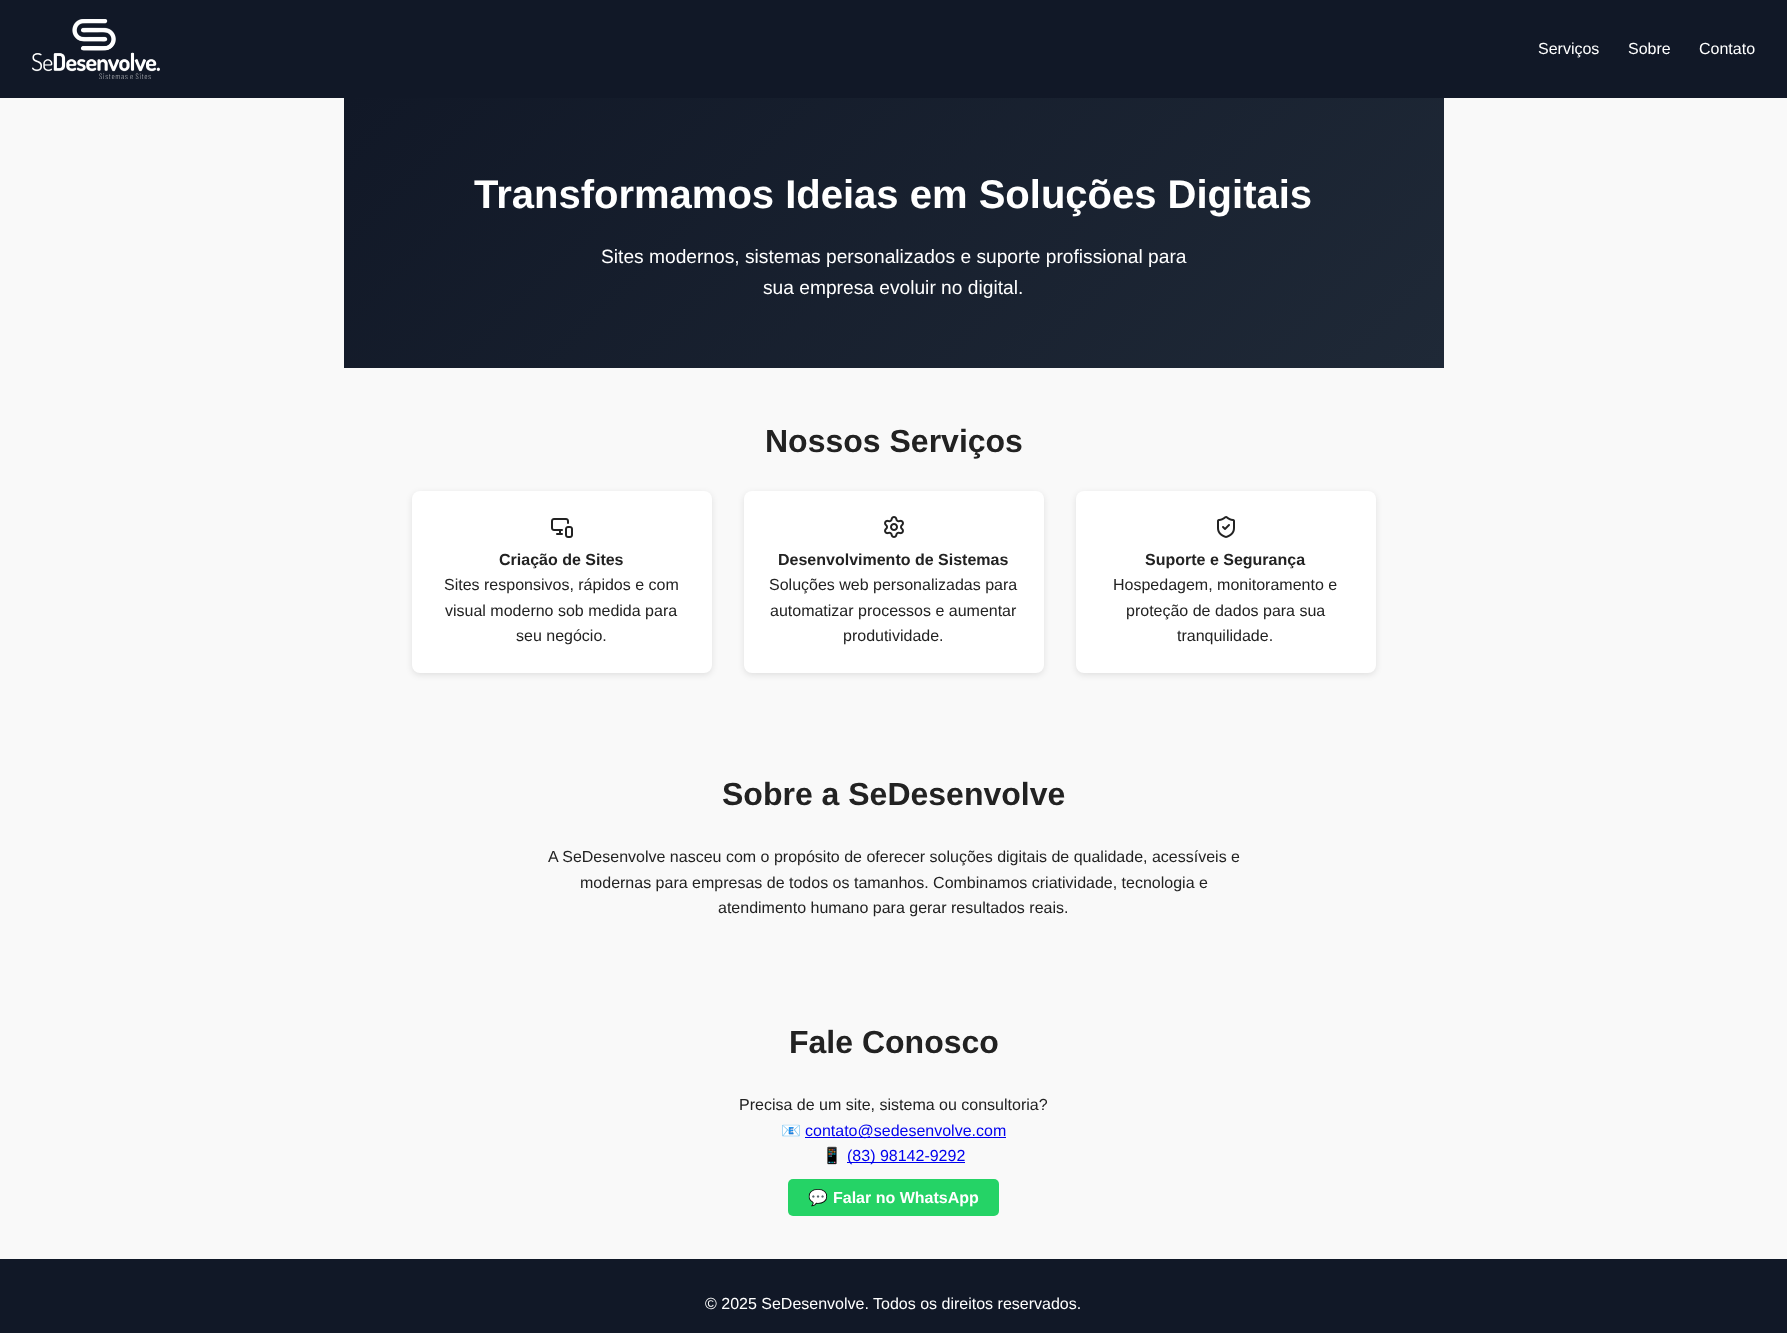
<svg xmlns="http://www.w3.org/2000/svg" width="1787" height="1333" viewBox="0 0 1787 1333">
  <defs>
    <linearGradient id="g1" gradientUnits="userSpaceOnUse" x1="552" y1="-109" x2="1237" y2="576"><stop offset="0" stop-color="#111827"/><stop offset="1" stop-color="#1f2937"/></linearGradient>
  </defs>
  <rect width="100%" height="100%" fill="#f9f9f9"/>
  <path d="M0 0h1787v98H0z" fill="#111827"/>
  <image x="32" y="19" width="128" height="60" href="img/1.png"/>
  <path d="M344 98h1100v270H344z" fill="url(#g1)"/>
  <rect x="412" y="493" width="300" height="182" rx="8" fill="#0000001a" filter="blur(3px)"/>
  <rect x="412" y="491" width="300" height="182" rx="8" fill="#fff"/>
  <image x="551" y="518" width="22" height="20" href="img/2.png"/>
  <rect x="744" y="493" width="300" height="182" rx="8" fill="#0000001a" filter="blur(3px)"/>
  <rect x="744" y="491" width="300" height="182" rx="8" fill="#fff"/>
  <image x="884" y="516" width="20" height="22" href="img/3.png"/>
  <rect x="1076" y="493" width="300" height="182" rx="8" fill="#0000001a" filter="blur(3px)"/>
  <rect x="1076" y="491" width="300" height="182" rx="8" fill="#fff"/>
  <image x="1217" y="516" width="18" height="22" href="img/4.png"/>
  <path d="M805 1137h201v1H805z" fill="#00e"/>
  <path d="M847 1162h118v1H847z" fill="#00e"/>
  <rect x="788" y="1179" width="211" height="37" rx="5" fill="#25d366"/>
  <path d="M0 1259h1787v74H0z" fill="#111827"/>
  <g font-family="Liberation Sans" font-size="16" fill="#fff">
    <text x="1538" y="54">Serviços</text>
    <text x="1628" y="54">Sobre</text>
    <text x="1699" y="54">Contato</text>
  </g>
  <text x="474" y="208" font-family="Liberation Sans" font-size="40" font-weight="bold" fill="#fff">Transformamos Ideias em Soluções Digitais</text>
  <g font-family="Liberation Sans" font-size="19.2" fill="#fff">
    <text x="601" y="263">Sites modernos, sistemas personalizados e suporte profissional para</text>
    <text x="763" y="294">sua empresa evoluir no digital.</text>
  </g>
  <text x="765" y="452" font-family="Liberation Sans" font-size="32" font-weight="bold" fill="#222">Nossos Serviços</text>
  <text x="499" y="565" font-family="Liberation Sans" font-size="16" font-weight="bold" fill="#222">Criação de Sites</text>
  <g font-family="Liberation Sans" font-size="16" fill="#222">
    <text x="444" y="590">Sites responsivos, rápidos e com</text>
    <text x="445" y="616">visual moderno sob medida para</text>
    <text x="516" y="641">seu negócio.</text>
  </g>
  <text x="778" y="565" font-family="Liberation Sans" font-size="16" font-weight="bold" fill="#222">Desenvolvimento de Sistemas</text>
  <g font-family="Liberation Sans" font-size="16" fill="#222">
    <text x="769" y="590">Soluções web personalizadas para</text>
    <text x="770" y="616">automatizar processos e aumentar</text>
    <text x="843" y="641">produtividade.</text>
  </g>
  <text x="1145" y="565" font-family="Liberation Sans" font-size="16" font-weight="bold" fill="#222">Suporte e Segurança</text>
  <g font-family="Liberation Sans" font-size="16" fill="#222">
    <text x="1113" y="590">Hospedagem, monitoramento e</text>
    <text x="1126" y="616">proteção de dados para sua</text>
    <text x="1177" y="641">tranquilidade.</text>
  </g>
  <text x="722" y="805" font-family="Liberation Sans" font-size="32" font-weight="bold" fill="#222">Sobre a SeDesenvolve</text>
  <g font-family="Liberation Sans" font-size="16" fill="#222">
    <text x="548" y="862">A SeDesenvolve nasceu com o propósito de oferecer soluções digitais de qualidade, acessíveis e</text>
    <text x="580" y="888">modernas para empresas de todos os tamanhos. Combinamos criatividade, tecnologia e</text>
    <text x="718" y="913">atendimento humano para gerar resultados reais.</text>
  </g>
  <text x="789" y="1053" font-family="Liberation Sans" font-size="32" font-weight="bold" fill="#222">Fale Conosco</text>
  <text x="739" y="1110" font-family="Liberation Sans" font-size="16" fill="#222">Precisa de um site, sistema ou consultoria?</text>
  <text x="781" y="1136" font-family="Noto Color Emoji" font-size="16" fill="#222">📧</text>
  <text x="805" y="1136" font-family="Liberation Sans" font-size="16" fill="#00e">contato@sedesenvolve.com</text>
  <text x="822" y="1161" font-family="Noto Color Emoji" font-size="16" fill="#222">📱</text>
  <text x="847" y="1161" font-family="Liberation Sans" font-size="16" fill="#00e">(83) 98142-9292</text>
  <text x="808" y="1203" font-family="Noto Color Emoji" font-size="16" font-weight="bold" fill="#fff">💬</text>
  <text x="833" y="1203" font-family="Liberation Sans" font-size="16" font-weight="bold" fill="#fff">Falar no WhatsApp</text>
  <text x="705" y="1309" font-family="Liberation Sans" font-size="16" fill="#fff">© 2025 SeDesenvolve. Todos os direitos reservados.</text>
</svg>
